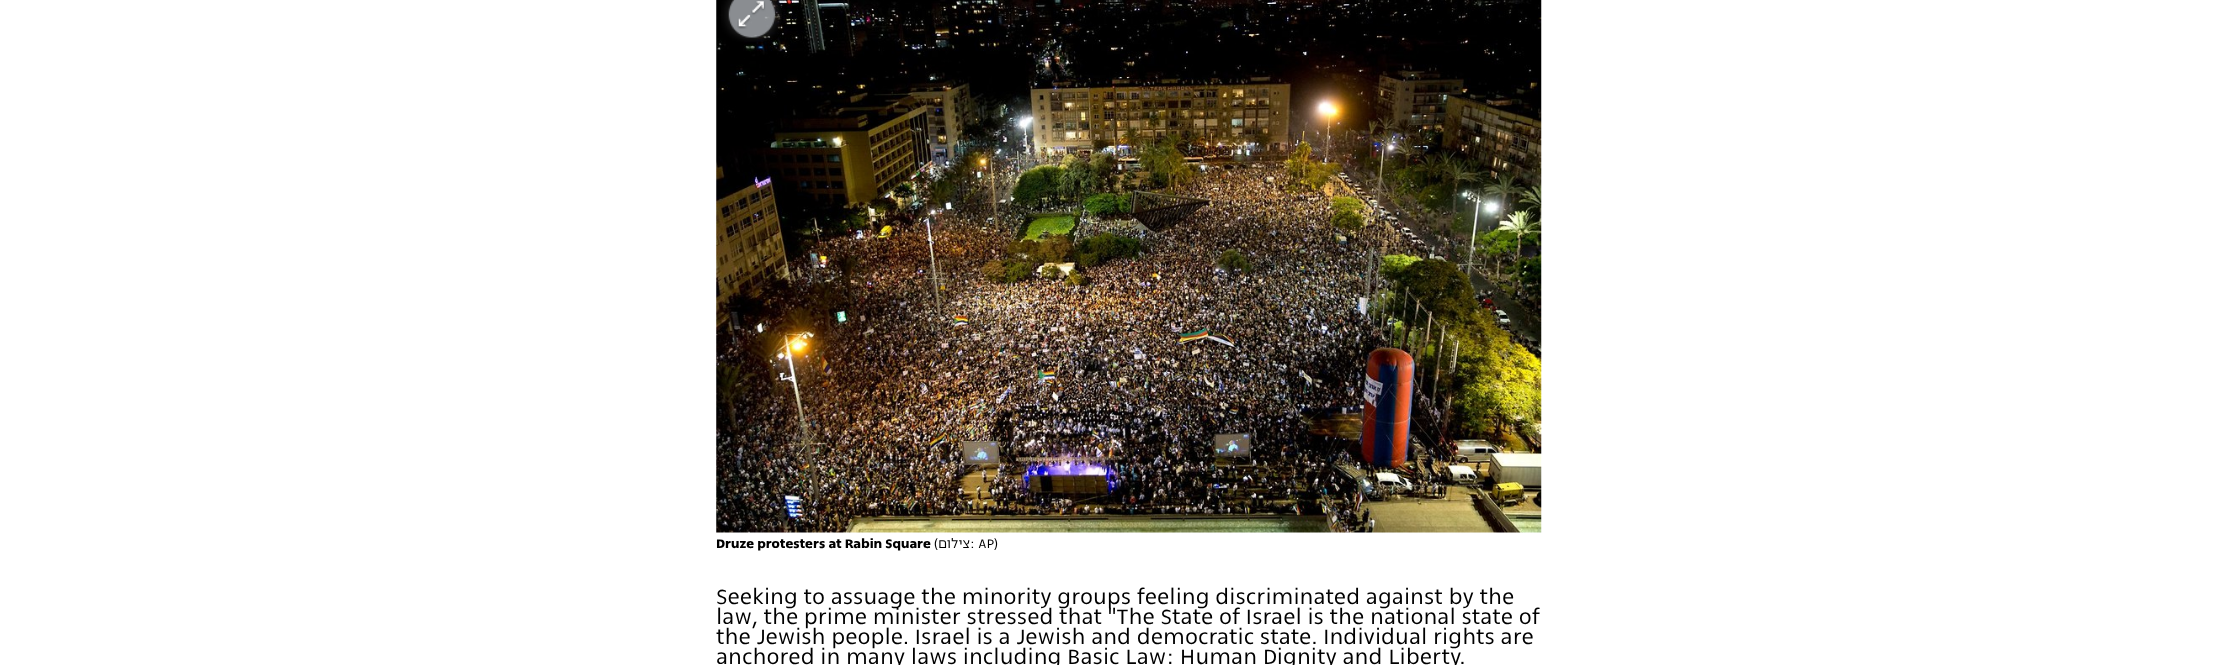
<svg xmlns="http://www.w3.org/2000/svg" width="2232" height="665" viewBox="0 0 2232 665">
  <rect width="100%" height="100%" fill="#fff"/>
  <image x="716" y="0" width="826" height="533" href="img/1.png"/>
  <image x="721" y="0" width="61" height="42" href="img/2.png"/>
  <text x="716" y="548" font-family="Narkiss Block" font-size="15" font-weight="bold" fill="#000">Druze protesters at Rabin Square</text>
  <text x="934" y="548" font-family="Narkiss Block" font-size="15" font-weight="300" fill="#000">(</text>
  <text x="970" y="548" font-family="Narkiss Block" font-size="15" font-weight="300" direction="rtl" fill="#000">צילום</text>
  <text x="970" y="548" font-family="Narkiss Block" font-size="15" font-weight="300" fill="#000">: AP)</text>
  <g font-family="Narkiss Block" font-size="25" font-weight="300" fill="#000">
    <text x="716" y="604">Seeking to assuage the minority groups feeling discriminated against by the</text>
    <text x="716" y="624">law, the prime minister stressed that "The State of Israel is the national state of</text>
    <text x="716" y="644">the Jewish people. Israel is a Jewish and democratic state. Individual rights are</text>
    <text x="716" y="664">anchored in many laws including Basic Law: Human Dignity and Liberty.</text>
  </g>
</svg>
